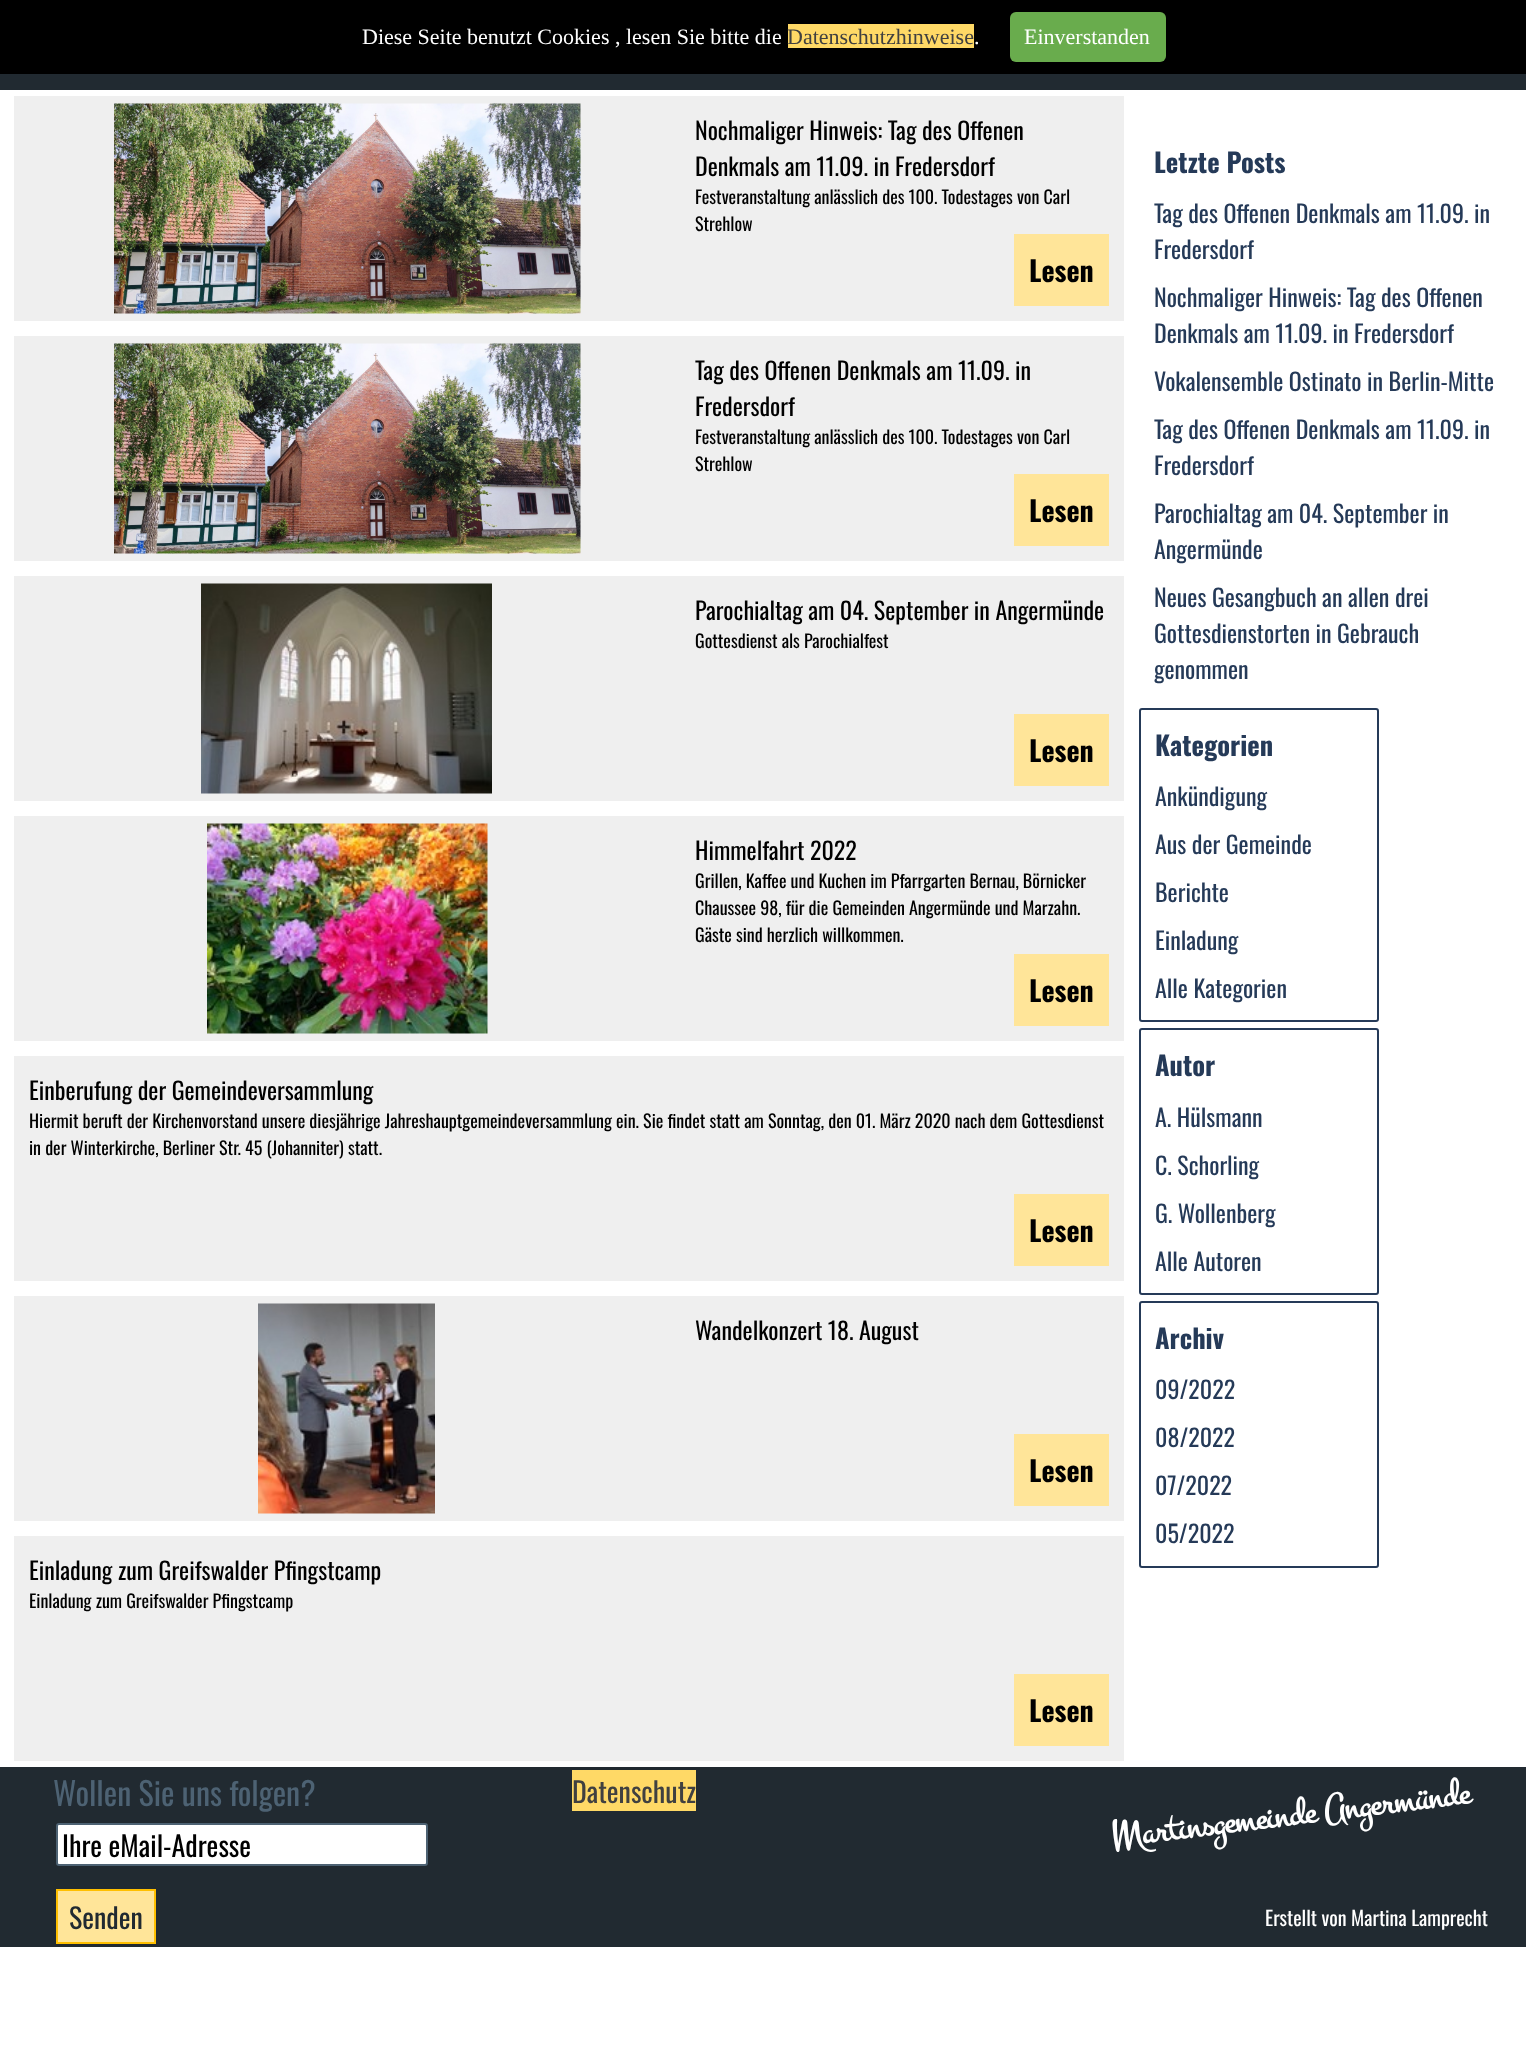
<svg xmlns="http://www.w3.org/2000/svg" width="1526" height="2060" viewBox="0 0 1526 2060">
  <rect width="100%" height="100%" fill="#fff"/>
  <path d="M0 0h1526v74H0z" fill="#000"/>
  <path d="M788 24h186v24H788z" fill="#ffd966"/>
  <rect x="1010" y="12" width="156" height="50" rx="6" fill="#69ac4d"/>
  <path d="M0 74h1526v16H0z" fill="#212a31"/>
  <path d="M14 96h1110v225H14z" fill="#efefef"/>
  <image x="114" y="103" width="467" height="211" href="img/1.png"/>
  <path d="M1014 234h95v72H1014z" fill="#ffe599"/>
  <path d="M14 336h1110v225H14z" fill="#efefef"/>
  <image x="114" y="343" width="467" height="211" href="img/1.png"/>
  <path d="M1014 474h95v72H1014z" fill="#ffe599"/>
  <path d="M14 576h1110v225H14z" fill="#efefef"/>
  <image x="201" y="583" width="291" height="211" href="img/2.png"/>
  <path d="M1014 714h95v72H1014z" fill="#ffe599"/>
  <path d="M14 816h1110v225H14z" fill="#efefef"/>
  <image x="207" y="823" width="281" height="211" href="img/3.png"/>
  <path d="M1014 954h95v72H1014z" fill="#ffe599"/>
  <path d="M14 1056h1110v225H14z" fill="#efefef"/>
  <path d="M1014 1194h95v72H1014z" fill="#ffe599"/>
  <path d="M14 1296h1110v225H14z" fill="#efefef"/>
  <image x="258" y="1303" width="177" height="211" href="img/4.png"/>
  <path d="M1014 1434h95v72H1014z" fill="#ffe599"/>
  <path d="M14 1536h1110v225H14z" fill="#efefef"/>
  <path d="M1014 1674h95v72H1014z" fill="#ffe599"/>
  <rect x="1140" y="709" width="238" height="312" rx="2" fill="none" stroke="#253a58" stroke-width="2"/>
  <rect x="1140" y="1029" width="238" height="265" rx="2" fill="none" stroke="#253a58" stroke-width="2"/>
  <rect x="1140" y="1302" width="238" height="265" rx="2" fill="none" stroke="#253a58" stroke-width="2"/>
  <path d="M0 1767h1526v180H0z" fill="#212a31"/>
  <path d="M572 1770h124v41H572z" fill="#ffd966"/>
  <rect x="57" y="1824" width="370" height="41" rx="2" fill="#fff" stroke="#4d6273" stroke-width="2"/>
  <path d="M57 1890h98v53H57z" fill="#ffe599" stroke="#ffbf00" stroke-width="2"/>
  <text x="362" y="44" font-family="Liberation Serif" font-size="22" fill="#fff">Diese Seite benutzt Cookies , lesen Sie bitte die</text>
  <text x="787" y="44" font-family="Liberation Serif" font-size="22" fill="#404040">Datenschutzhinweise</text>
  <g font-family="Liberation Serif" font-size="22" fill="#fff">
    <text x="974" y="44">.</text>
    <text x="1024" y="44">Einverstanden</text>
  </g>
  <g font-family="Oswald" font-size="24" fill="#000">
    <text x="695" y="140">Nochmaliger Hinweis: Tag des Offenen</text>
    <text x="695" y="176">Denkmals am 11.09. in Fredersdorf</text>
  </g>
  <g font-family="Oswald" font-size="18" fill="#000">
    <text x="695" y="204">Festveranstaltung anlässlich des 100. Todestages von Carl</text>
    <text x="695" y="231">Strehlow</text>
  </g>
  <text x="1029" y="282" font-family="Oswald" font-size="28" font-weight="bold" fill="#000">Lesen</text>
  <g font-family="Oswald" font-size="24" fill="#000">
    <text x="695" y="380">Tag des Offenen Denkmals am 11.09. in</text>
    <text x="695" y="416">Fredersdorf</text>
  </g>
  <g font-family="Oswald" font-size="18" fill="#000">
    <text x="695" y="444">Festveranstaltung anlässlich des 100. Todestages von Carl</text>
    <text x="695" y="471">Strehlow</text>
  </g>
  <text x="1029" y="522" font-family="Oswald" font-size="28" font-weight="bold" fill="#000">Lesen</text>
  <text x="695" y="620" font-family="Oswald" font-size="24" fill="#000">Parochialtag am 04. September in Angermünde</text>
  <text x="695" y="648" font-family="Oswald" font-size="18" fill="#000">Gottesdienst als Parochialfest</text>
  <text x="1029" y="762" font-family="Oswald" font-size="28" font-weight="bold" fill="#000">Lesen</text>
  <text x="695" y="860" font-family="Oswald" font-size="24" fill="#000">Himmelfahrt 2022</text>
  <g font-family="Oswald" font-size="18" fill="#000">
    <text x="695" y="888">Grillen, Kaffee und Kuchen im Pfarrgarten Bernau, Börnicker</text>
    <text x="695" y="915">Chaussee 98, für die Gemeinden Angermünde und Marzahn.</text>
    <text x="695" y="942">Gäste sind herzlich willkommen.</text>
  </g>
  <text x="1029" y="1002" font-family="Oswald" font-size="28" font-weight="bold" fill="#000">Lesen</text>
  <text x="29" y="1100" font-family="Oswald" font-size="24" fill="#000">Einberufung der Gemeindeversammlung</text>
  <g font-family="Oswald" font-size="18" fill="#000">
    <text x="29" y="1128">Hiermit beruft der Kirchenvorstand unsere diesjährige Jahreshauptgemeindeversammlung ein. Sie findet statt am Sonntag, den 01. März 2020 nach dem Gottesdienst</text>
    <text x="29" y="1155">in der Winterkirche, Berliner Str. 45 (Johanniter) statt.</text>
  </g>
  <text x="1029" y="1242" font-family="Oswald" font-size="28" font-weight="bold" fill="#000">Lesen</text>
  <text x="695" y="1340" font-family="Oswald" font-size="24" fill="#000">Wandelkonzert 18. August</text>
  <text x="1029" y="1482" font-family="Oswald" font-size="28" font-weight="bold" fill="#000">Lesen</text>
  <text x="29" y="1580" font-family="Oswald" font-size="24" fill="#000">Einladung zum Greifswalder Pfingstcamp</text>
  <text x="29" y="1608" font-family="Oswald" font-size="18" fill="#000">Einladung zum Greifswalder Pfingstcamp</text>
  <text x="1029" y="1722" font-family="Oswald" font-size="28" font-weight="bold" fill="#000">Lesen</text>
  <text x="1154" y="173" font-family="Oswald" font-size="26.5" font-weight="bold" fill="#253a58">Letzte Posts</text>
  <g font-family="Oswald" font-size="24" fill="#253a58">
    <text x="1154" y="223">Tag des Offenen Denkmals am 11.09. in</text>
    <text x="1154" y="259">Fredersdorf</text>
    <text x="1154" y="307">Nochmaliger Hinweis: Tag des Offenen</text>
    <text x="1154" y="343">Denkmals am 11.09. in Fredersdorf</text>
    <text x="1154" y="391">Vokalensemble Ostinato in Berlin-Mitte</text>
    <text x="1154" y="439">Tag des Offenen Denkmals am 11.09. in</text>
    <text x="1154" y="475">Fredersdorf</text>
    <text x="1154" y="523">Parochialtag am 04. September in</text>
    <text x="1154" y="559">Angermünde</text>
    <text x="1154" y="607">Neues Gesangbuch an allen drei</text>
    <text x="1154" y="643">Gottesdienstorten in Gebrauch</text>
    <text x="1154" y="679">genommen</text>
  </g>
  <text x="1155" y="756" font-family="Oswald" font-size="26.5" font-weight="bold" fill="#253a58">Kategorien</text>
  <g font-family="Oswald" font-size="24" fill="#253a58">
    <text x="1155" y="806">Ankündigung</text>
    <text x="1155" y="854">Aus der Gemeinde</text>
    <text x="1155" y="902">Berichte</text>
    <text x="1155" y="950">Einladung</text>
    <text x="1155" y="998">Alle Kategorien</text>
  </g>
  <text x="1155" y="1076" font-family="Oswald" font-size="26.5" font-weight="bold" fill="#253a58">Autor</text>
  <g font-family="Oswald" font-size="24" fill="#253a58">
    <text x="1155" y="1127">A. Hülsmann</text>
    <text x="1155" y="1175">C. Schorling</text>
    <text x="1155" y="1223">G. Wollenberg</text>
    <text x="1155" y="1271">Alle Autoren</text>
  </g>
  <text x="1155" y="1349" font-family="Oswald" font-size="26.5" font-weight="bold" fill="#253a58">Archiv</text>
  <g font-family="Oswald" font-size="24" fill="#253a58">
    <text x="1155" y="1399">09/2022</text>
    <text x="1155" y="1447">08/2022</text>
    <text x="1155" y="1495">07/2022</text>
    <text x="1155" y="1543">05/2022</text>
  </g>
  <text x="53" y="1806" font-family="Oswald" font-size="32" fill="#4d6273">Wollen Sie uns folgen?</text>
  <text x="572" y="1803" font-family="Oswald" font-size="28" fill="#404040">Datenschutz</text>
  <text x="1112" y="1847" transform="rotate(-7 1112 1847)" font-family="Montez" font-size="39.25" font-weight="bold" letter-spacing="-0.75" fill="#fff">Martinsgemeinde Angermünde</text>
  <text x="62" y="1857" font-family="Oswald" font-size="28" fill="#000">Ihre eMail-Adresse</text>
  <text x="69" y="1929" font-family="Oswald" font-size="28" fill="#212a31">Senden</text>
  <text x="1265" y="1926" font-family="Oswald" font-size="20" fill="#fff">Erstellt von Martina Lamprecht</text>
</svg>
